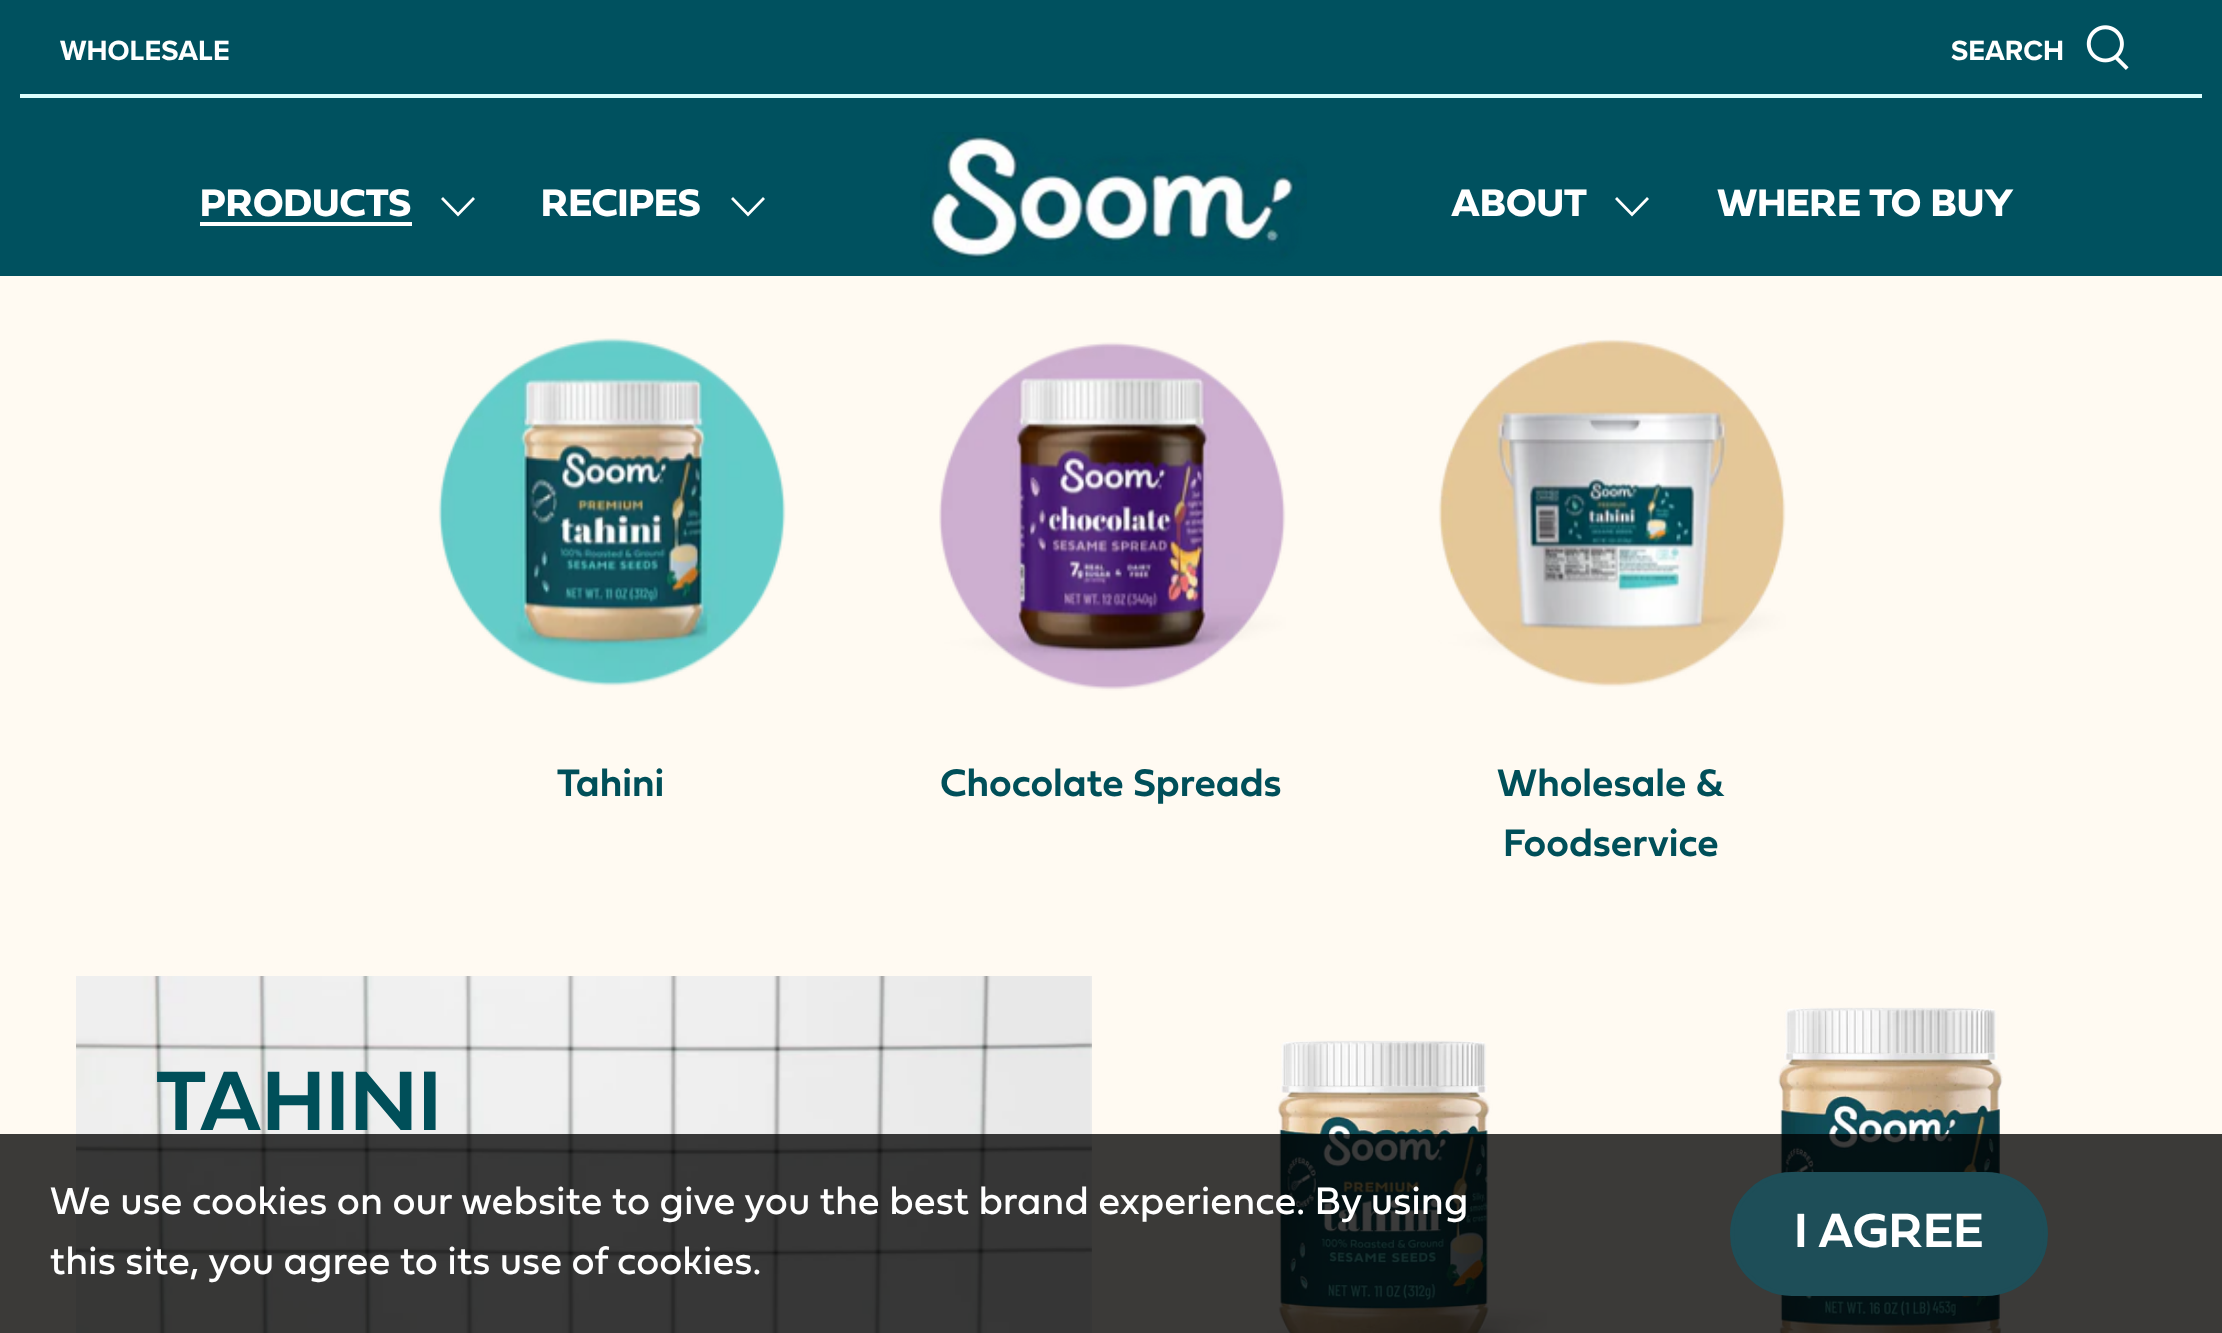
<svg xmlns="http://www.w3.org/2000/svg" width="2222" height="1333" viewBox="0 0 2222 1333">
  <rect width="100%" height="100%" fill="#fffaf2"/>
  <path d="M0 0h2222v276H0z" fill="#00515f"/>
  <path d="M20 94h2182v4H20z" fill="#ddfefd"/>
  <image x="2086" y="25" width="43" height="45" href="img/1.png"/>
  <path d="M200 222h212v4H200z" fill="#fff"/>
  <path d="M458 216.5L441 199L443 197L458 212.5L473 197L475 199Z" fill="#fff"/>
  <path d="M748 216.5L731 199L733 197L748 212.5L763 197L765 199Z" fill="#fff"/>
  <image x="920" y="132" width="387" height="135" href="img/2.png"/>
  <path d="M1632 216.5L1615 199L1617 197L1632 212.5L1647 197L1649 199Z" fill="#fff"/>
  <image x="438" y="338" width="348" height="349" href="img/3.png"/>
  <image x="939" y="342" width="347" height="349" href="img/4.png"/>
  <image x="1438" y="339" width="348" height="348" href="img/5.png"/>
  <image x="76" y="976" width="1016" height="357" href="img/6.png"/>
  <image x="1267" y="1040" width="280" height="293" href="img/7.png"/>
  <image x="1778" y="1007" width="225" height="326" href="img/8.png"/>
  <path d="M0 1134h2222v199H0z" fill="#000000c4"/>
  <rect x="1732" y="1174" width="314" height="120" rx="60" fill="#1e4e58" stroke="#1e4e58" stroke-width="4"/>
  <g font-family="Proxima Nova" font-size="28.75" font-weight="bold" fill="#fff">
    <text x="60" y="60">WHOLESALE</text>
    <text x="1951" y="60">SEARCH</text>
  </g>
  <g font-family="'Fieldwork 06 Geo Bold'" font-size="40" font-weight="bold" fill="#fff">
    <text x="200" y="216">PRODUCTS</text>
    <text x="541" y="216">RECIPES</text>
    <text x="1451" y="216">ABOUT</text>
    <text x="1717" y="216">WHERE TO BUY</text>
  </g>
  <g font-family="'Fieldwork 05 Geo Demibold'" font-size="40" font-weight="600" fill="#004f59">
    <text x="557" y="796">Tahini</text>
    <text x="940" y="796">Chocolate Spreads</text>
    <text x="1497" y="796">Wholesale &amp;</text>
    <text x="1503" y="856">Foodservice</text>
  </g>
  <text x="156" y="1130" font-family="'Fieldwork 05 Geo Demibold'" font-size="88" font-weight="600" fill="#004f59">TAHINI</text>
  <g font-family="'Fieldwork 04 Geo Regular'" font-size="40" fill="#fff">
    <text x="50" y="1214">We use cookies on our website to give you the best brand experience. By using</text>
    <text x="50" y="1274">this site, you agree to its use of cookies.</text>
  </g>
  <text x="1794" y="1247" font-family="'Fieldwork 05 Geo Demibold'" font-size="50" font-weight="600" fill="#fff">I AGREE</text>
</svg>
